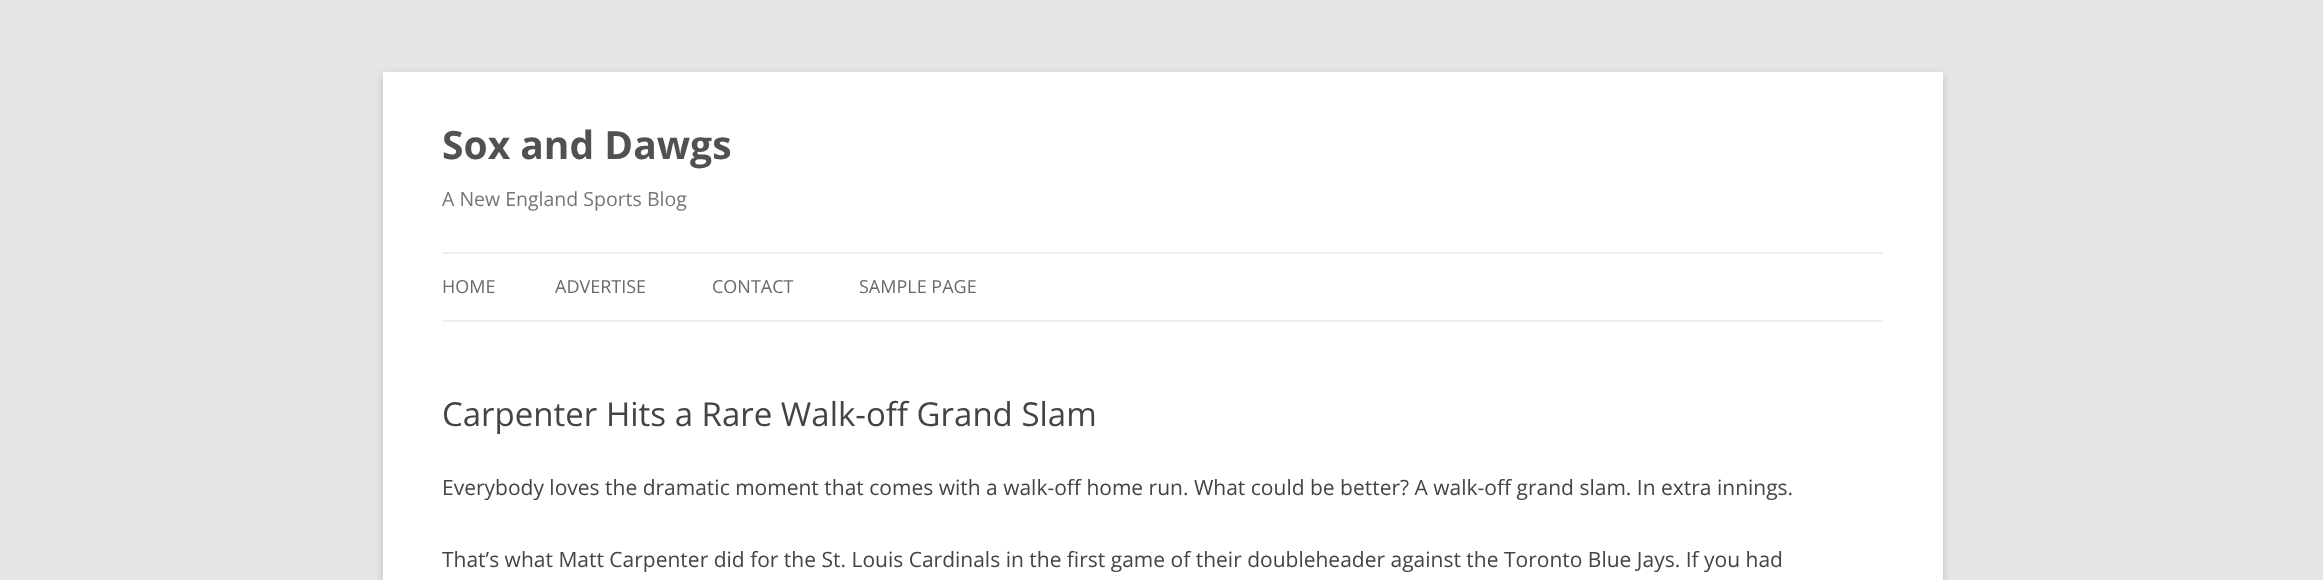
<svg xmlns="http://www.w3.org/2000/svg" width="2323" height="580" viewBox="0 0 2323 580">
  <rect width="100%" height="100%" fill="#e6e6e6"/>
  <path d="M383 75h1560v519H383z" fill="#6464644d" filter="blur(4.5px)"/>
  <path d="M383 72h1560v508H383z" fill="#fff"/>
  <path d="M443 252h1440v2H443z" fill="#ededed"/>
  <path d="M443 320h1440v2H443z" fill="#ededed"/>
  <text x="442" y="159" font-family="Open Sans" font-size="39" font-weight="bold" fill="#515151">Sox and Dawgs</text>
  <text x="442" y="206" font-family="Open Sans" font-size="19.5" fill="#757575">A New England Sports Blog</text>
  <g font-family="Open Sans" font-size="18" fill="#6a6a6a">
    <text x="442" y="293">HOME</text>
    <text x="555" y="293">ADVERTISE</text>
    <text x="712" y="293">CONTACT</text>
    <text x="859" y="293">SAMPLE PAGE</text>
  </g>
  <text x="442" y="426" font-family="Open Sans" font-size="33" fill="#444">Carpenter Hits a Rare Walk-off Grand Slam</text>
  <g font-family="Open Sans" font-size="21" fill="#444">
    <text x="442" y="495">Everybody loves the dramatic moment that comes with a walk-off home run. What could be better? A walk-off grand slam. In extra innings.</text>
    <text x="442" y="567">That’s what Matt Carpenter did for the St. Louis Cardinals in the first game of their doubleheader against the Toronto Blue Jays. If you had</text>
  </g>
</svg>
